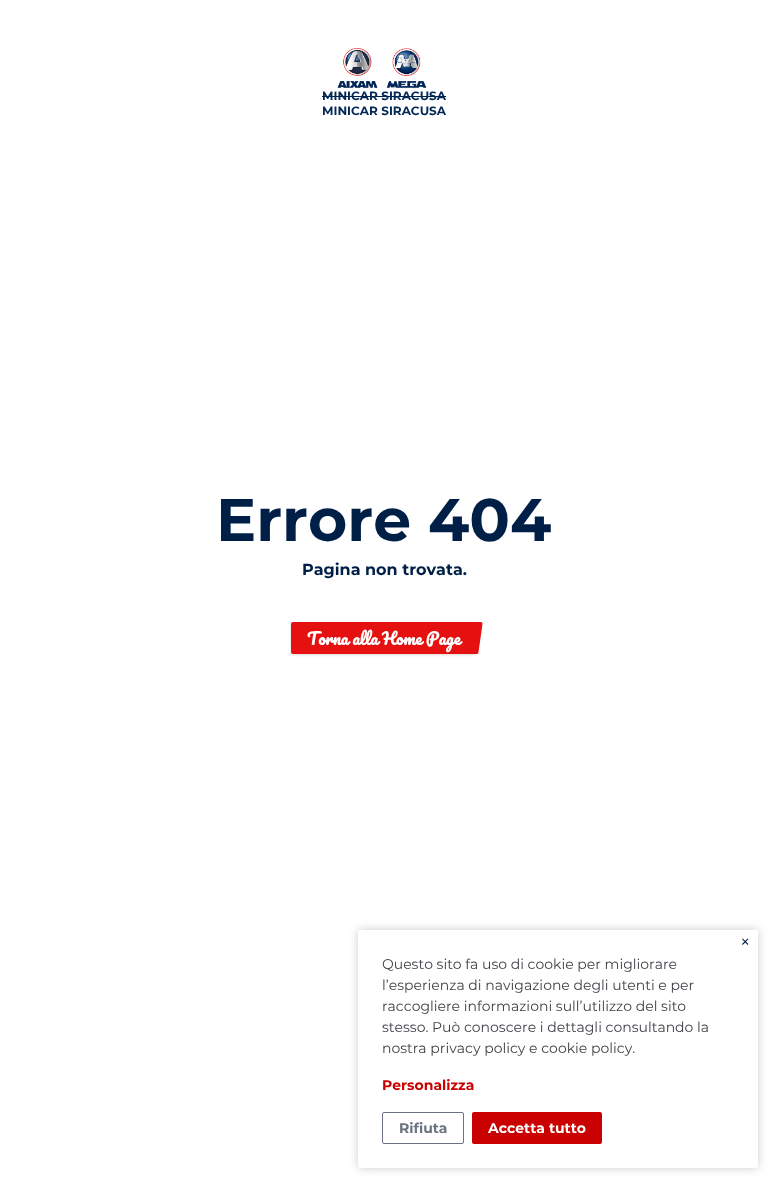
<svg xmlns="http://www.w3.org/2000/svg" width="768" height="1178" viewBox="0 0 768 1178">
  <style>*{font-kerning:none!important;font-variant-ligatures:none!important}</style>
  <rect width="100%" height="100%" fill="#fff"/>
  <image x="337" y="48" width="90" height="40" href="img/1.png"/>
  <path d="M322 96h124v1H322z" fill="#001f47"/>
  <rect x="292" y="624" width="184" height="30" rx="1" fill="#0000001a" filter="blur(1px)"/>
  <rect x="291" y="623" width="186" height="32" rx="2" fill="#0000001a" filter="blur(1.5px)"/>
  <rect x="291" y="622" width="186" height="32" rx="2" fill="#e41110"/>
  <path d="M471 622H481C482 622 482.5 623 482.5 624L478.5 652C478.5 653.5 477.5 654 476.5 654H466.5Z" fill="#e41110"/>
  <rect x="358" y="930" width="400" height="238" rx="2" fill="#00000033" filter="blur(5px)"/>
  <rect x="358" y="930" width="400" height="238" rx="2" fill="#fff"/>
  <rect x="382.5" y="1112.5" width="81" height="31" rx="1.5" fill="none" stroke="#6b7280"/>
  <rect x="472" y="1112" width="130" height="32" rx="2" fill="#c90101"/>
  <g font-family="Montserrat" font-size="12" font-weight="100" fill="#012856">
    <text x="322" y="100">MINICAR SIRACUSA</text>
    <text x="322" y="115">MINICAR SIRACUSA</text>
  </g>
  <text x="216" y="541" font-family="Montserrat" font-size="60" font-weight="100" fill="#001f47">Errore 404</text>
  <text x="302" y="575" font-family="Montserrat" font-size="16" font-weight="100" fill="#001f47">Pagina non trovata.</text>
  <text x="307" y="645" font-family="Pacifico" font-size="16" font-weight="bold" fill="#fff">Torna alla Home Page</text>
  <text x="740" y="948" font-family="'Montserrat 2'" font-size="18" font-weight="100" fill="#001f47">×</text>
  <g font-family="'Montserrat 2'" font-size="14" font-weight="100" fill="#3f3f46">
    <text x="382" y="969">Questo sito fa uso di cookie per migliorare</text>
    <text x="382" y="990">l’esperienza di navigazione degli utenti e per</text>
    <text x="382" y="1011">raccogliere informazioni sull’utilizzo del sito</text>
    <text x="382" y="1032">stesso. Può conoscere i dettagli consultando la</text>
    <text x="382" y="1053">nostra privacy policy e cookie policy.</text>
  </g>
  <text x="382" y="1090" font-family="Montserrat" font-size="14" font-weight="100" fill="#c90101">Personalizza</text>
  <text x="399" y="1133" font-family="Montserrat" font-size="14" font-weight="100" fill="#6b7280">Rifiuta</text>
  <text x="488" y="1133" font-family="Montserrat" font-size="14" font-weight="100" fill="#fff">Accetta tutto</text>
</svg>
